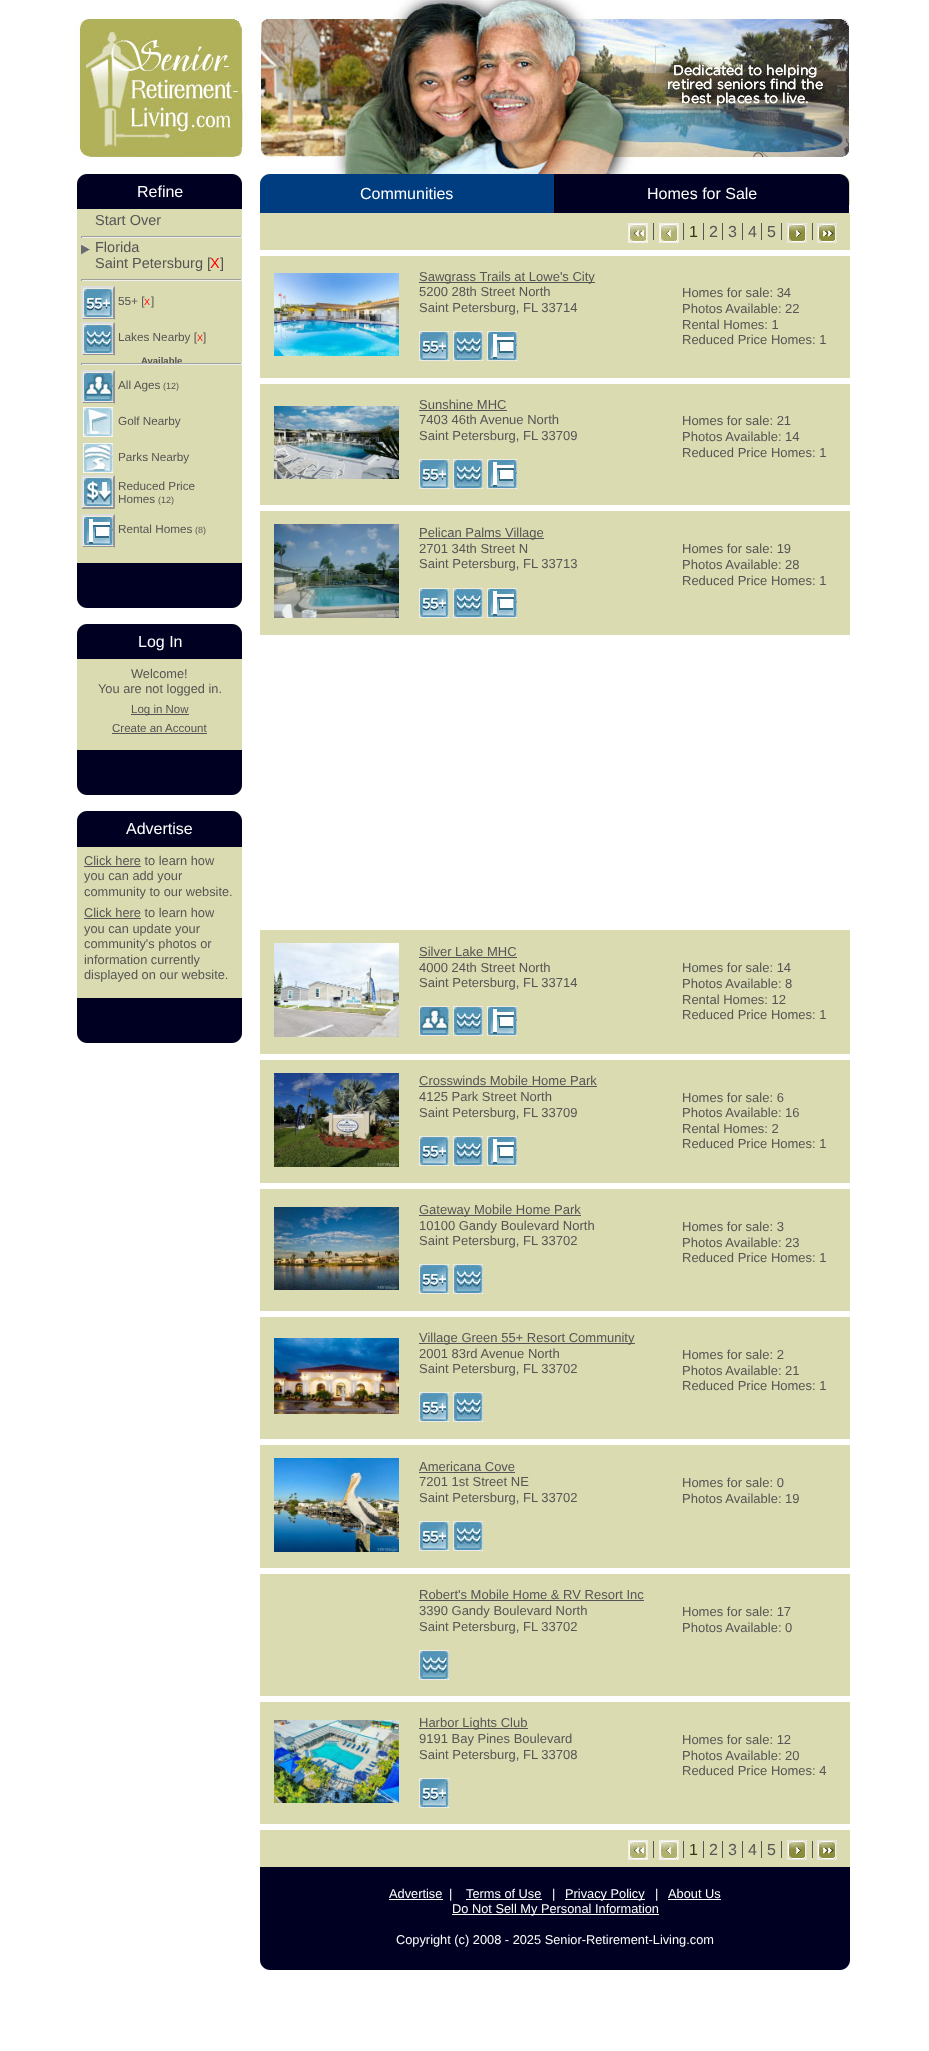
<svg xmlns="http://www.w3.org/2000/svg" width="929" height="2051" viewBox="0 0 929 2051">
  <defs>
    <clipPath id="clip1"><path d="M81 283h161v36H81z"/></clipPath>
    <clipPath id="clip2"><path d="M81 319h161v36H81z"/></clipPath>
    <clipPath id="clip3"><path d="M81 367h161v36H81z"/></clipPath>
    <clipPath id="clip4"><path d="M81 511h161v36H81z"/></clipPath>
  </defs>
  <rect width="100%" height="100%" fill="#fff"/>
  <image x="73" y="0" width="776" height="174" href="img/1.png"/>
  <rect x="77" y="174" width="165" height="434" rx="10" fill="#dbdbb1"/>
  <path d="M87 174H232C237.5 174 242 178.5 242 184V209H77V184C77 178.5 81.5 174 87 174Z" fill="#002"/>
  <path d="M81 236h161v1H81z" fill="#9f9f9f"/>
  <path d="M241 236h1v2H241z" fill="#eee"/>
  <path d="M81 237h161v1H81z" fill="#eee"/>
  <path d="M81 236h1v2H81z" fill="#9f9f9f"/>
  <image x="81" y="244" width="9" height="11" href="img/2.png"/>
  <path d="M81 279h161v1H81z" fill="#9f9f9f"/>
  <path d="M241 279h1v2H241z" fill="#eee"/>
  <path d="M81 280h161v1H81z" fill="#eee"/>
  <path d="M81 279h1v2H81z" fill="#9f9f9f"/>
  <path d="M81 286H115L113 288H83Z" fill="#ddd"/>
  <path d="M115 286V320L113 318V288Z" fill="#939393"/>
  <g clip-path="url(#clip1)">
    <path d="M115 320H81L83 318H113Z" fill="#939393"/>
  </g>
  <path d="M81 320V286L83 288V318Z" fill="#ddd"/>
  <image x="83" y="288" width="30" height="30" href="img/3.png"/>
  <path d="M81 322H115L113 324H83Z" fill="#ddd"/>
  <path d="M115 322V356L113 354V324Z" fill="#939393"/>
  <g clip-path="url(#clip2)">
    <path d="M115 356H81L83 354H113Z" fill="#939393"/>
  </g>
  <path d="M81 356V322L83 324V354Z" fill="#ddd"/>
  <image x="83" y="324" width="30" height="30" href="img/4.png"/>
  <path d="M81 370H115L113 372H83Z" fill="#ddd"/>
  <path d="M115 370V404L113 402V372Z" fill="#939393"/>
  <g clip-path="url(#clip3)">
    <path d="M115 404H81L83 402H113Z" fill="#939393"/>
  </g>
  <path d="M81 404V370L83 372V402Z" fill="#ddd"/>
  <image x="83" y="372" width="30" height="30" href="img/5.png"/>
  <image x="83" y="407" width="30" height="30" href="img/6.png"/>
  <image x="83" y="443" width="30" height="30" href="img/7.png"/>
  <path d="M81 475H115L113 477H83Z" fill="#ddd"/>
  <path d="M115 475V509L113 507V477Z" fill="#939393"/>
  <path d="M115 509H81L83 507H113Z" fill="#939393"/>
  <path d="M81 509V475L83 477V507Z" fill="#ddd"/>
  <image x="83" y="477" width="30" height="30" href="img/8.png"/>
  <path d="M81 514H115L113 516H83Z" fill="#ddd"/>
  <path d="M115 514V548L113 546V516Z" fill="#939393"/>
  <g clip-path="url(#clip4)">
    <path d="M115 548H81L83 546H113Z" fill="#939393"/>
  </g>
  <path d="M81 548V514L83 516V546Z" fill="#ddd"/>
  <image x="83" y="516" width="30" height="30" href="img/9.png"/>
  <path d="M77 563H242V598C242 603.5 237.5 608 232 608H87C81.5 608 77 603.5 77 598Z" fill="#002"/>
  <rect x="77" y="624" width="165" height="171" rx="10" fill="#dbdbb1"/>
  <path d="M87 624H232C237.5 624 242 628.5 242 634V659H77V634C77 628.5 81.5 624 87 624Z" fill="#002"/>
  <path d="M131 714h58v1H131z" fill="#555"/>
  <path d="M112 733h95v1H112z" fill="#555"/>
  <path d="M77 750H242V785C242 790.5 237.5 795 232 795H87C81.5 795 77 790.5 77 785Z" fill="#002"/>
  <rect x="77" y="811" width="165" height="232" rx="10" fill="#dbdbb1"/>
  <path d="M87 811H232C237.5 811 242 815.5 242 821V847H77V821C77 815.5 81.5 811 87 811Z" fill="#002"/>
  <path d="M84 866h57v1H84z" fill="#555"/>
  <path d="M84 918h57v1H84z" fill="#555"/>
  <path d="M77 998H242V1033C242 1038.5 237.5 1043 232 1043H87C81.5 1043 77 1038.5 77 1033Z" fill="#002"/>
  <path d="M270 174H840C845.5 174 850 178.5 850 184V205H260V184C260 178.5 264.5 174 270 174Z" fill="#dbdbb1"/>
  <path d="M270 174H555V213H260V184C260 178.5 264.5 174 270 174Z" fill="#003c80"/>
  <path d="M554 174h1v39H554z" fill="#000"/>
  <path d="M555 174H839C844.5 174 849 178.5 849 184V213H555Z" fill="#002"/>
  <path d="M260 213h590v37H260z" fill="#dbdbb1"/>
  <image x="628" y="223" width="20" height="20" href="img/10.png"/>
  <path d="M653 223h1v17H653z" fill="#555"/>
  <image x="659" y="223" width="20" height="20" href="img/11.png"/>
  <path d="M683 223h1v17H683z" fill="#555"/>
  <path d="M703 223h1v17H703z" fill="#555"/>
  <path d="M722 223h1v17H722z" fill="#555"/>
  <path d="M742 223h1v17H742z" fill="#555"/>
  <path d="M761 223h1v17H761z" fill="#555"/>
  <path d="M781 223h1v17H781z" fill="#555"/>
  <image x="787" y="223" width="20" height="20" href="img/12.png"/>
  <path d="M812 223h1v17H812z" fill="#555"/>
  <image x="817" y="223" width="20" height="20" href="img/13.png"/>
  <path d="M260 256h590v1568H260z" fill="#dbdbb1"/>
  <image x="274" y="273" width="125" height="83" href="img/14.png"/>
  <path d="M419 282h176v1H419z" fill="#555"/>
  <image x="419" y="331" width="30" height="30" href="img/3.png"/>
  <image x="453" y="331" width="30" height="30" href="img/4.png"/>
  <image x="487" y="331" width="30" height="30" href="img/9.png"/>
  <path d="M257 378h596v6H257z" fill="#fff"/>
  <image x="274" y="406" width="125" height="73" href="img/15.png"/>
  <path d="M419 410h88v1H419z" fill="#555"/>
  <image x="419" y="459" width="30" height="30" href="img/3.png"/>
  <image x="453" y="459" width="30" height="30" href="img/4.png"/>
  <image x="487" y="459" width="30" height="30" href="img/9.png"/>
  <path d="M257 505h596v6H257z" fill="#fff"/>
  <image x="274" y="524" width="125" height="94" href="img/16.png"/>
  <path d="M419 538h125v1H419z" fill="#555"/>
  <image x="419" y="588" width="30" height="30" href="img/3.png"/>
  <image x="453" y="588" width="30" height="30" href="img/4.png"/>
  <image x="487" y="588" width="30" height="30" href="img/9.png"/>
  <path d="M257 635h596v6H257z" fill="#fff"/>
  <path d="M260 641h590v283H260z" fill="#fff"/>
  <path d="M257 924h596v6H257z" fill="#fff"/>
  <image x="274" y="943" width="125" height="94" href="img/17.png"/>
  <path d="M419 957h98v1H419z" fill="#555"/>
  <image x="419" y="1006" width="30" height="30" href="img/5.png"/>
  <image x="453" y="1006" width="30" height="30" href="img/4.png"/>
  <image x="487" y="1006" width="30" height="30" href="img/9.png"/>
  <path d="M257 1054h596v6H257z" fill="#fff"/>
  <image x="274" y="1073" width="125" height="94" href="img/18.png"/>
  <path d="M419 1086h178v1H419z" fill="#555"/>
  <image x="419" y="1136" width="30" height="30" href="img/3.png"/>
  <image x="453" y="1136" width="30" height="30" href="img/4.png"/>
  <image x="487" y="1136" width="30" height="30" href="img/9.png"/>
  <path d="M257 1183h596v6H257z" fill="#fff"/>
  <image x="274" y="1207" width="125" height="83" href="img/19.png"/>
  <path d="M419 1215h162v1H419z" fill="#555"/>
  <image x="419" y="1264" width="30" height="30" href="img/3.png"/>
  <image x="453" y="1264" width="30" height="30" href="img/4.png"/>
  <path d="M257 1311h596v6H257z" fill="#fff"/>
  <image x="274" y="1338" width="125" height="76" href="img/20.png"/>
  <path d="M419 1343h216v1H419z" fill="#555"/>
  <image x="419" y="1392" width="30" height="30" href="img/3.png"/>
  <image x="453" y="1392" width="30" height="30" href="img/4.png"/>
  <path d="M257 1439h596v6H257z" fill="#fff"/>
  <image x="274" y="1458" width="125" height="94" href="img/21.png"/>
  <path d="M419 1472h96v1H419z" fill="#555"/>
  <image x="419" y="1521" width="30" height="30" href="img/3.png"/>
  <image x="453" y="1521" width="30" height="30" href="img/4.png"/>
  <path d="M257 1568h596v6H257z" fill="#fff"/>
  <path d="M419 1600h225v1H419z" fill="#555"/>
  <image x="419" y="1650" width="30" height="30" href="img/4.png"/>
  <path d="M257 1696h596v6H257z" fill="#fff"/>
  <image x="274" y="1720" width="125" height="83" href="img/22.png"/>
  <path d="M419 1728h109v1H419z" fill="#555"/>
  <image x="419" y="1778" width="30" height="30" href="img/3.png"/>
  <path d="M260 1830h590v37H260z" fill="#dbdbb1"/>
  <image x="628" y="1840" width="20" height="20" href="img/10.png"/>
  <path d="M653 1841h1v17H653z" fill="#555"/>
  <image x="659" y="1840" width="20" height="20" href="img/11.png"/>
  <path d="M683 1841h1v17H683z" fill="#555"/>
  <path d="M703 1841h1v17H703z" fill="#555"/>
  <path d="M722 1841h1v17H722z" fill="#555"/>
  <path d="M742 1841h1v17H742z" fill="#555"/>
  <path d="M761 1841h1v17H761z" fill="#555"/>
  <path d="M781 1841h1v17H781z" fill="#555"/>
  <image x="787" y="1840" width="20" height="20" href="img/12.png"/>
  <path d="M812 1841h1v17H812z" fill="#555"/>
  <image x="817" y="1840" width="20" height="20" href="img/13.png"/>
  <path d="M260 1867H850V1960C850 1965.5 845.5 1970 840 1970H270C264.5 1970 260 1965.5 260 1960Z" fill="#002"/>
  <path d="M389 1899h54v1H389z" fill="#fff"/>
  <path d="M466 1899h76v1H466z" fill="#fff"/>
  <path d="M565 1899h80v1H565z" fill="#fff"/>
  <path d="M668 1899h53v1H668z" fill="#fff"/>
  <path d="M452 1914h207v1H452z" fill="#fff"/>
  <text x="137" y="197" font-family="Liberation Sans" font-size="16" fill="#fff">Refine</text>
  <g font-family="Liberation Sans" font-size="14.5" fill="#555">
    <text x="95" y="225">Start Over</text>
    <text x="95" y="252">Florida</text>
    <text x="95" y="268">Saint Petersburg [</text>
  </g>
  <text x="210" y="268" font-family="Liberation Sans" font-size="14.5" fill="#f00">X</text>
  <text x="220" y="268" font-family="Liberation Sans" font-size="14.5" fill="#555">]</text>
  <text x="118" y="305" font-family="Liberation Sans" font-size="11.75" fill="#555">55+ [</text>
  <text x="144" y="305" font-family="Liberation Sans" font-size="9" fill="#f00">X</text>
  <g font-family="Liberation Sans" font-size="11.75" fill="#555">
    <text x="151" y="305">]</text>
    <text x="118" y="341">Lakes Nearby [</text>
  </g>
  <text x="197" y="341" font-family="Liberation Sans" font-size="9" fill="#f00">X</text>
  <text x="203" y="341" font-family="Liberation Sans" font-size="11.75" fill="#555">]</text>
  <text x="141" y="364" font-family="Liberation Sans" font-size="9.5" font-weight="bold" fill="#555">Available</text>
  <path d="M81 363h161v1H81z" fill="#9f9f9f"/>
  <path d="M241 363h1v2H241z" fill="#eee"/>
  <path d="M81 364h161v1H81z" fill="#eee"/>
  <path d="M81 363h1v2H81z" fill="#9f9f9f"/>
  <text x="118" y="389" font-family="Liberation Sans" font-size="11.75" fill="#555">All Ages</text>
  <text x="163" y="389" font-family="Liberation Sans" font-size="9" fill="#555">(12)</text>
  <g font-family="Liberation Sans" font-size="11.75" fill="#555">
    <text x="118" y="425">Golf Nearby</text>
    <text x="118" y="461">Parks Nearby</text>
    <text x="118" y="490">Reduced Price</text>
    <text x="118" y="503">Homes</text>
  </g>
  <text x="158" y="503" font-family="Liberation Sans" font-size="9" fill="#555">(12)</text>
  <text x="118" y="533" font-family="Liberation Sans" font-size="11.75" fill="#555">Rental Homes</text>
  <text x="195" y="533" font-family="Liberation Sans" font-size="9" fill="#555">(8)</text>
  <text x="138" y="647" font-family="Liberation Sans" font-size="16" fill="#fff">Log In</text>
  <g font-family="Liberation Sans" font-size="12.8" fill="#555">
    <text x="131" y="678">Welcome!</text>
    <text x="98" y="693">You are not logged in.</text>
  </g>
  <g font-family="Liberation Sans" font-size="11.5" fill="#555">
    <text x="131" y="713">Log in Now</text>
    <text x="112" y="732">Create an Account</text>
  </g>
  <text x="126" y="834" font-family="Liberation Sans" font-size="16" fill="#fff">Advertise</text>
  <g font-family="Liberation Sans" font-size="12.8" fill="#555">
    <text x="84" y="865">Click here to learn how</text>
    <text x="84" y="880">you can add your</text>
    <text x="84" y="896">community to our website.</text>
    <text x="84" y="917">Click here to learn how</text>
    <text x="84" y="933">you can update your</text>
    <text x="84" y="948">community's photos or</text>
    <text x="84" y="964">information currently</text>
    <text x="84" y="979">displayed on our website.</text>
  </g>
  <g font-family="Liberation Sans" font-size="16" fill="#fff">
    <text x="360" y="199">Communities</text>
    <text x="647" y="199">Homes for Sale</text>
  </g>
  <text x="689" y="237" font-family="Liberation Sans" font-size="16" fill="#383810">1</text>
  <g font-family="Liberation Sans" font-size="16" fill="#555">
    <text x="709" y="237">2</text>
    <text x="728" y="237">3</text>
    <text x="748" y="237">4</text>
    <text x="767" y="237">5</text>
  </g>
  <g font-family="Liberation Sans" font-size="13" fill="#555">
    <text x="419" y="281">Sawgrass Trails at Lowe's City</text>
    <text x="419" y="296">5200 28th Street North</text>
    <text x="419" y="312">Saint Petersburg, FL 33714</text>
    <text x="682" y="297">Homes for sale: 34</text>
    <text x="682" y="313">Photos Available: 22</text>
    <text x="682" y="329">Rental Homes: 1</text>
    <text x="682" y="344">Reduced Price Homes: 1</text>
    <text x="419" y="409">Sunshine MHC</text>
    <text x="419" y="424">7403 46th Avenue North</text>
    <text x="419" y="440">Saint Petersburg, FL 33709</text>
    <text x="682" y="425">Homes for sale: 21</text>
    <text x="682" y="441">Photos Available: 14</text>
    <text x="682" y="457">Reduced Price Homes: 1</text>
    <text x="419" y="537">Pelican Palms Village</text>
    <text x="419" y="553">2701 34th Street N</text>
    <text x="419" y="568">Saint Petersburg, FL 33713</text>
    <text x="682" y="553">Homes for sale: 19</text>
    <text x="682" y="569">Photos Available: 28</text>
    <text x="682" y="585">Reduced Price Homes: 1</text>
    <text x="419" y="956">Silver Lake MHC</text>
    <text x="419" y="972">4000 24th Street North</text>
    <text x="419" y="987">Saint Petersburg, FL 33714</text>
    <text x="682" y="972">Homes for sale: 14</text>
    <text x="682" y="988">Photos Available: 8</text>
    <text x="682" y="1004">Rental Homes: 12</text>
    <text x="682" y="1019">Reduced Price Homes: 1</text>
    <text x="419" y="1085">Crosswinds Mobile Home Park</text>
    <text x="419" y="1101">4125 Park Street North</text>
    <text x="419" y="1117">Saint Petersburg, FL 33709</text>
    <text x="682" y="1102">Homes for sale: 6</text>
    <text x="682" y="1117">Photos Available: 16</text>
    <text x="682" y="1133">Rental Homes: 2</text>
    <text x="682" y="1148">Reduced Price Homes: 1</text>
    <text x="419" y="1214">Gateway Mobile Home Park</text>
    <text x="419" y="1230">10100 Gandy Boulevard North</text>
    <text x="419" y="1245">Saint Petersburg, FL 33702</text>
    <text x="682" y="1231">Homes for sale: 3</text>
    <text x="682" y="1247">Photos Available: 23</text>
    <text x="682" y="1262">Reduced Price Homes: 1</text>
    <text x="419" y="1342">Village Green 55+ Resort Community</text>
    <text x="419" y="1358">2001 83rd Avenue North</text>
    <text x="419" y="1373">Saint Petersburg, FL 33702</text>
    <text x="682" y="1359">Homes for sale: 2</text>
    <text x="682" y="1375">Photos Available: 21</text>
    <text x="682" y="1390">Reduced Price Homes: 1</text>
    <text x="419" y="1471">Americana Cove</text>
    <text x="419" y="1486">7201 1st Street NE</text>
    <text x="419" y="1502">Saint Petersburg, FL 33702</text>
    <text x="682" y="1487">Homes for sale: 0</text>
    <text x="682" y="1503">Photos Available: 19</text>
    <text x="419" y="1599">Robert's Mobile Home &amp; RV Resort Inc</text>
    <text x="419" y="1615">3390 Gandy Boulevard North</text>
    <text x="419" y="1631">Saint Petersburg, FL 33702</text>
    <text x="682" y="1616">Homes for sale: 17</text>
    <text x="682" y="1632">Photos Available: 0</text>
    <text x="419" y="1727">Harbor Lights Club</text>
    <text x="419" y="1743">9191 Bay Pines Boulevard</text>
    <text x="419" y="1759">Saint Petersburg, FL 33708</text>
    <text x="682" y="1744">Homes for sale: 12</text>
    <text x="682" y="1760">Photos Available: 20</text>
    <text x="682" y="1775">Reduced Price Homes: 4</text>
  </g>
  <text x="689" y="1855" font-family="Liberation Sans" font-size="16" fill="#383810">1</text>
  <g font-family="Liberation Sans" font-size="16" fill="#555">
    <text x="709" y="1855">2</text>
    <text x="728" y="1855">3</text>
    <text x="748" y="1855">4</text>
    <text x="767" y="1855">5</text>
  </g>
  <g font-family="Liberation Sans" font-size="12.8" fill="#fff">
    <text x="389" y="1898">Advertise</text>
    <text x="449" y="1898">|</text>
    <text x="466" y="1898">Terms of Use</text>
    <text x="552" y="1898">|</text>
    <text x="565" y="1898">Privacy Policy</text>
    <text x="655" y="1898">|</text>
    <text x="668" y="1898">About Us</text>
    <text x="452" y="1913">Do Not Sell My Personal Information</text>
    <text x="396" y="1944">Copyright (c) 2008 - 2025 Senior-Retirement-Living.com</text>
  </g>
</svg>
